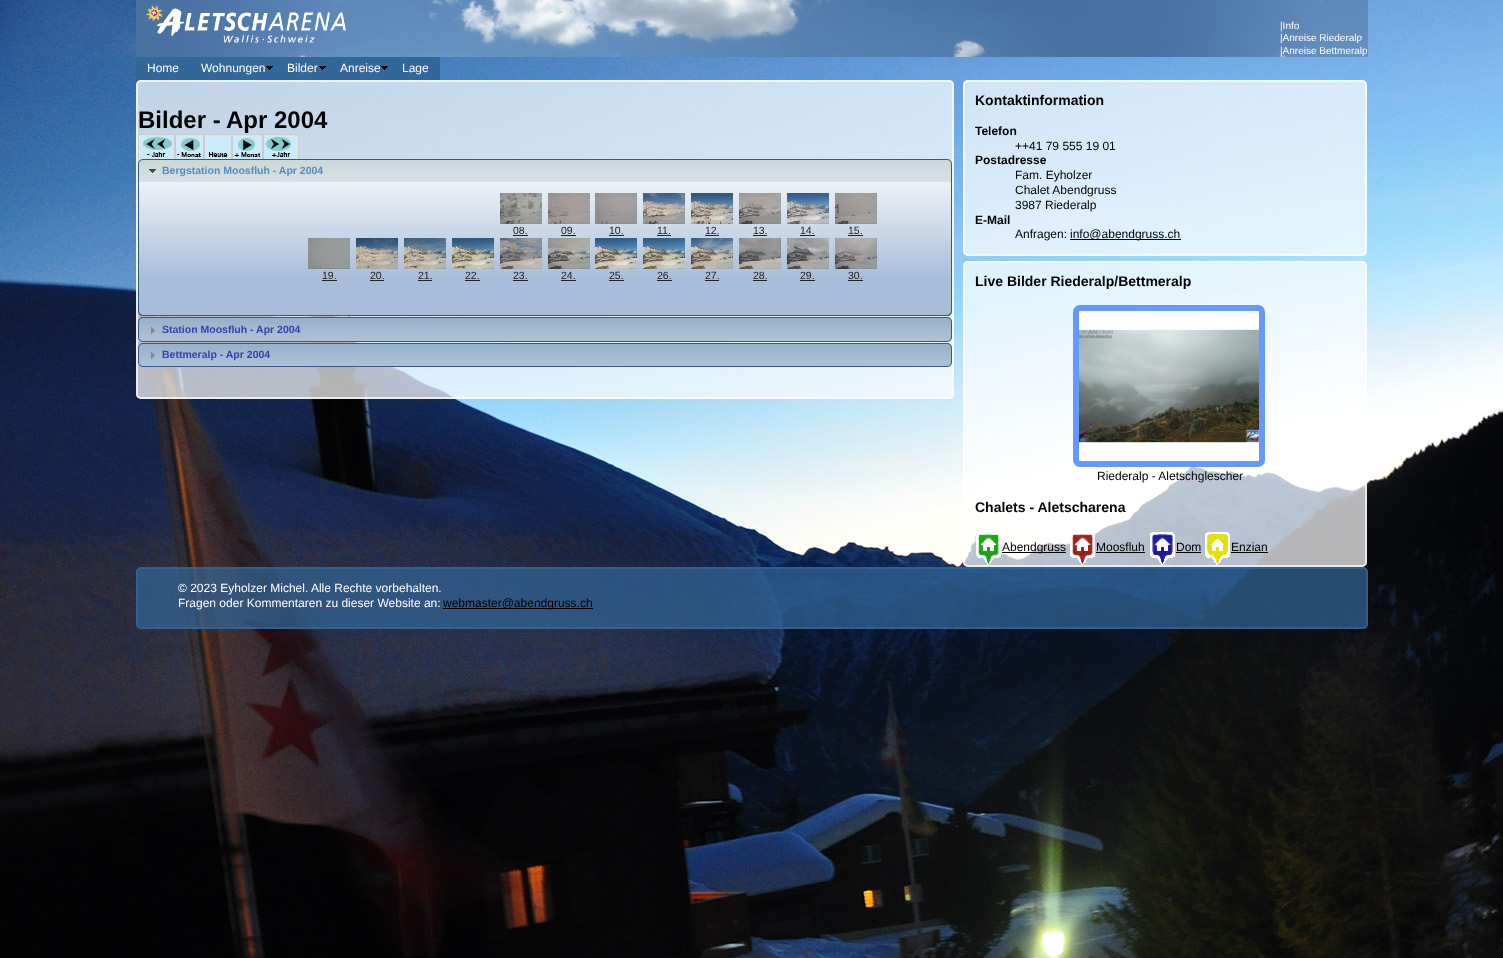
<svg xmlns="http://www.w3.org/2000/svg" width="1503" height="958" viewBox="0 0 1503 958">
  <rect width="100%" height="100%" fill="#fff"/>
  <image x="0" y="0" width="1503" height="958" href="img/1.png"/>
  <image x="136" y="0" width="1232" height="57" href="img/2.png"/>
  <image x="146" y="5" width="200" height="38" href="img/3.png"/>
  <path d="M136 57h304v23H136z" fill="#369"/>
  <image x="266" y="66" width="7" height="4" href="img/4.png"/>
  <image x="319" y="66" width="7" height="4" href="img/4.png"/>
  <image x="381" y="66" width="7" height="4" href="img/4.png"/>
  <rect x="136" y="80" width="818" height="319" rx="5" fill="#ffffffb3"/>
  <rect x="137" y="81" width="816" height="317" rx="4" fill="none" stroke="#ffffffb3" stroke-width="2"/>
  <image x="139" y="135" width="35" height="25" href="img/5.png"/>
  <path d="M138.5 134.5h36v26H138.5z" fill="none" stroke="#ccc"/>
  <image x="176" y="135" width="27" height="24" href="img/6.png"/>
  <path d="M175.5 134.5h28v26H175.5z" fill="none" stroke="#ccc"/>
  <image x="205" y="135" width="26" height="24" href="img/7.png"/>
  <path d="M204.5 134.5h27v26H204.5z" fill="none" stroke="#ccc"/>
  <image x="233" y="135" width="29" height="24" href="img/8.png"/>
  <path d="M232.5 134.5h30v26H232.5z" fill="none" stroke="#ccc"/>
  <image x="264" y="135" width="34" height="24" href="img/9.png"/>
  <path d="M263.5 134.5h35v26H263.5z" fill="none" stroke="#ccc"/>
  <path d="M143 159H947C950 159 952 161 952 164V183H138V164C138 161 140 159 143 159Z" fill="#9ab3b7"/>
  <image x="138" y="160" width="814" height="22" href="img/10.png"/>
  <path d="M143 159.5H947C949.5 159.5 951.5 161.5 951.5 164V182.5H138.5V164C138.5 161.5 140.5 159.5 143 159.5Z" fill="none" stroke="#39587f"/>
  <image x="149" y="169" width="7" height="4" href="img/11.png"/>
  <path d="M138 182H952V311C952 314 950 316 947 316H143C140 316 138 314 138 311Z" fill="#a7bdd9"/>
  <image x="139" y="182" width="812" height="93" href="img/12.png"/>
  <path d="M138 182H952V311C952 314 950 316 947 316H143C140 316 138 314 138 311ZM139 182H951V311C951 313 949 315 947 315H143C141 315 139 313 139 311Z" fill="#39587f" fill-rule="evenodd"/>
  <image x="500" y="193" width="42" height="31" href="img/13.png"/>
  <path d="M513 235h15v1H513z" fill="#222"/>
  <image x="548" y="193" width="42" height="31" href="img/14.png"/>
  <path d="M561 235h15v1H561z" fill="#222"/>
  <image x="595" y="193" width="42" height="31" href="img/15.png"/>
  <path d="M609 235h15v1H609z" fill="#222"/>
  <image x="643" y="193" width="42" height="31" href="img/16.png"/>
  <path d="M657 235h14v1H657z" fill="#222"/>
  <image x="691" y="193" width="42" height="31" href="img/17.png"/>
  <path d="M705 235h14v1H705z" fill="#222"/>
  <image x="739" y="193" width="42" height="31" href="img/18.png"/>
  <path d="M753 235h14v1H753z" fill="#222"/>
  <image x="787" y="193" width="42" height="31" href="img/19.png"/>
  <path d="M800 235h15v1H800z" fill="#222"/>
  <image x="835" y="193" width="42" height="31" href="img/20.png"/>
  <path d="M848 235h15v1H848z" fill="#222"/>
  <image x="308" y="238" width="42" height="31" href="img/21.png"/>
  <path d="M322 280h15v1H322z" fill="#222"/>
  <image x="356" y="238" width="42" height="31" href="img/22.png"/>
  <path d="M370 280h14v1H370z" fill="#222"/>
  <image x="404" y="238" width="42" height="31" href="img/23.png"/>
  <path d="M418 280h14v1H418z" fill="#222"/>
  <image x="452" y="238" width="42" height="31" href="img/24.png"/>
  <path d="M465 280h15v1H465z" fill="#222"/>
  <image x="500" y="238" width="42" height="31" href="img/25.png"/>
  <path d="M513 280h15v1H513z" fill="#222"/>
  <image x="548" y="238" width="42" height="31" href="img/26.png"/>
  <path d="M561 280h15v1H561z" fill="#222"/>
  <image x="595" y="238" width="42" height="31" href="img/27.png"/>
  <path d="M609 280h15v1H609z" fill="#222"/>
  <image x="643" y="238" width="42" height="31" href="img/28.png"/>
  <path d="M657 280h15v1H657z" fill="#222"/>
  <image x="691" y="238" width="42" height="31" href="img/29.png"/>
  <path d="M705 280h14v1H705z" fill="#222"/>
  <image x="739" y="238" width="42" height="31" href="img/30.png"/>
  <path d="M753 280h14v1H753z" fill="#222"/>
  <image x="787" y="238" width="42" height="31" href="img/31.png"/>
  <path d="M800 280h15v1H800z" fill="#222"/>
  <image x="835" y="238" width="42" height="31" href="img/32.png"/>
  <path d="M848 280h15v1H848z" fill="#222"/>
  <rect x="138" y="317" width="814" height="25" rx="5" fill="#369"/>
  <image x="138" y="318" width="814" height="24" href="img/33.png"/>
  <rect x="138.5" y="317.5" width="813" height="24" rx="4.5" fill="none" stroke="#39587f"/>
  <image x="151" y="327" width="4" height="7" href="img/34.png"/>
  <rect x="138" y="343" width="814" height="24" rx="5" fill="#369"/>
  <image x="138" y="344" width="814" height="23" href="img/35.png"/>
  <rect x="138.5" y="343.5" width="813" height="23" rx="4.5" fill="none" stroke="#39587f"/>
  <image x="151" y="352" width="4" height="7" href="img/36.png"/>
  <rect x="963" y="80" width="404" height="176" rx="5" fill="#ffffffb3"/>
  <rect x="964" y="81" width="402" height="174" rx="4" fill="none" stroke="#ffffffb3" stroke-width="2"/>
  <path d="M1070 239h111v1H1070z" fill="#000"/>
  <rect x="963" y="261" width="404" height="306" rx="5" fill="#ffffffb3"/>
  <rect x="964" y="262" width="402" height="304" rx="4" fill="none" stroke="#ffffffb3" stroke-width="2"/>
  <rect x="1073" y="305" width="192" height="162" rx="7" fill="#69f"/>
  <image x="1079" y="311" width="180" height="150" href="img/37.png"/>
  <image x="976" y="532" width="25" height="33" href="img/38.png"/>
  <path d="M1002 552h64v1H1002z" fill="#000"/>
  <image x="1070" y="534" width="25" height="31" href="img/39.png"/>
  <path d="M1096 552h49v1H1096z" fill="#000"/>
  <image x="1150" y="532" width="25" height="33" href="img/40.png"/>
  <path d="M1176 552h25v1H1176z" fill="#000"/>
  <image x="1205" y="532" width="25" height="33" href="img/41.png"/>
  <path d="M1231 552h37v1H1231z" fill="#000"/>
  <rect x="136" y="567" width="1232" height="62" rx="5" fill="#336699b3"/>
  <rect x="137" y="568" width="1230" height="60" rx="4" fill="none" stroke="#336699b3" stroke-width="2"/>
  <path d="M443 608h150v1H443z" fill="#000"/>
  <g font-family="Liberation Sans" font-size="10" fill="#fff">
    <text x="1280" y="29">|Info</text>
    <text x="1280" y="41">|Anreise Riederalp</text>
    <text x="1280" y="54">|Anreise Bettmeralp</text>
  </g>
  <g font-family="Liberation Sans" font-size="12" fill="#fff">
    <text x="147" y="72">Home</text>
    <text x="201" y="72">Wohnungen</text>
    <text x="287" y="72">Bilder</text>
    <text x="340" y="72">Anreise</text>
    <text x="402" y="72">Lage</text>
  </g>
  <g font-family="Liberation Sans" font-size="24" font-weight="bold" fill="#000">
    <text x="138" y="128">Bilder -</text>
    <text x="226" y="128">Apr 2004</text>
  </g>
  <text x="162" y="174" font-family="Liberation Sans" font-size="10.5" font-weight="bold" fill="#548dbf">Bergstation Moosfluh - Apr 2004</text>
  <g font-family="Liberation Sans" font-size="10.5" fill="#222">
    <text x="513" y="234">08.</text>
    <text x="561" y="234">09.</text>
    <text x="609" y="234">10.</text>
    <text x="657" y="234">11.</text>
    <text x="705" y="234">12.</text>
    <text x="753" y="234">13.</text>
    <text x="800" y="234">14.</text>
    <text x="848" y="234">15.</text>
    <text x="322" y="279">19.</text>
    <text x="370" y="279">20.</text>
    <text x="418" y="279">21.</text>
    <text x="465" y="279">22.</text>
    <text x="513" y="279">23.</text>
    <text x="561" y="279">24.</text>
    <text x="609" y="279">25.</text>
    <text x="657" y="279">26.</text>
    <text x="705" y="279">27.</text>
    <text x="753" y="279">28.</text>
    <text x="800" y="279">29.</text>
    <text x="848" y="279">30.</text>
  </g>
  <g font-family="Liberation Sans" font-size="10.5" font-weight="bold" fill="#3740ad">
    <text x="162" y="333">Station Moosfluh - Apr 2004</text>
    <text x="162" y="358">Bettmeralp - Apr 2004</text>
  </g>
  <text x="975" y="105" font-family="Liberation Sans" font-size="14" font-weight="bold" fill="#000">Kontaktinformation</text>
  <text x="975" y="135" font-family="Liberation Sans" font-size="12" font-weight="bold" fill="#000">Telefon</text>
  <text x="1015" y="150" font-family="Liberation Sans" font-size="12" fill="#000">++41 79 555 19 01</text>
  <text x="975" y="164" font-family="Liberation Sans" font-size="12" font-weight="bold" fill="#000">Postadresse</text>
  <g font-family="Liberation Sans" font-size="12" fill="#000">
    <text x="1015" y="179">Fam. Eyholzer</text>
    <text x="1015" y="194">Chalet Abendgruss</text>
    <text x="1015" y="209">3987 Riederalp</text>
  </g>
  <text x="975" y="224" font-family="Liberation Sans" font-size="12" font-weight="bold" fill="#000">E-Mail</text>
  <g font-family="Liberation Sans" font-size="12" fill="#000">
    <text x="1015" y="238">Anfragen:</text>
    <text x="1070" y="238">info@abendgruss.ch</text>
  </g>
  <text x="975" y="286" font-family="Liberation Sans" font-size="14" font-weight="bold" fill="#000">Live Bilder Riederalp/Bettmeralp</text>
  <text x="1097" y="480" font-family="Liberation Sans" font-size="12" fill="#000">Riederalp - Aletschglescher</text>
  <text x="975" y="512" font-family="Liberation Sans" font-size="14" font-weight="bold" fill="#000">Chalets - Aletscharena</text>
  <g font-family="Liberation Sans" font-size="12" fill="#000">
    <text x="1002" y="551">Abendgruss</text>
    <text x="1096" y="551">Moosfluh</text>
    <text x="1176" y="551">Dom</text>
    <text x="1231" y="551">Enzian</text>
  </g>
  <g font-family="Liberation Sans" font-size="12" fill="#fff">
    <text x="178" y="592">© 2023 Eyholzer Michel. Alle Rechte vorbehalten.</text>
    <text x="178" y="607">Fragen oder Kommentaren zu dieser Website an:</text>
  </g>
  <text x="443" y="607" font-family="Liberation Sans" font-size="12" fill="#000">webmaster@abendgruss.ch</text>
</svg>
